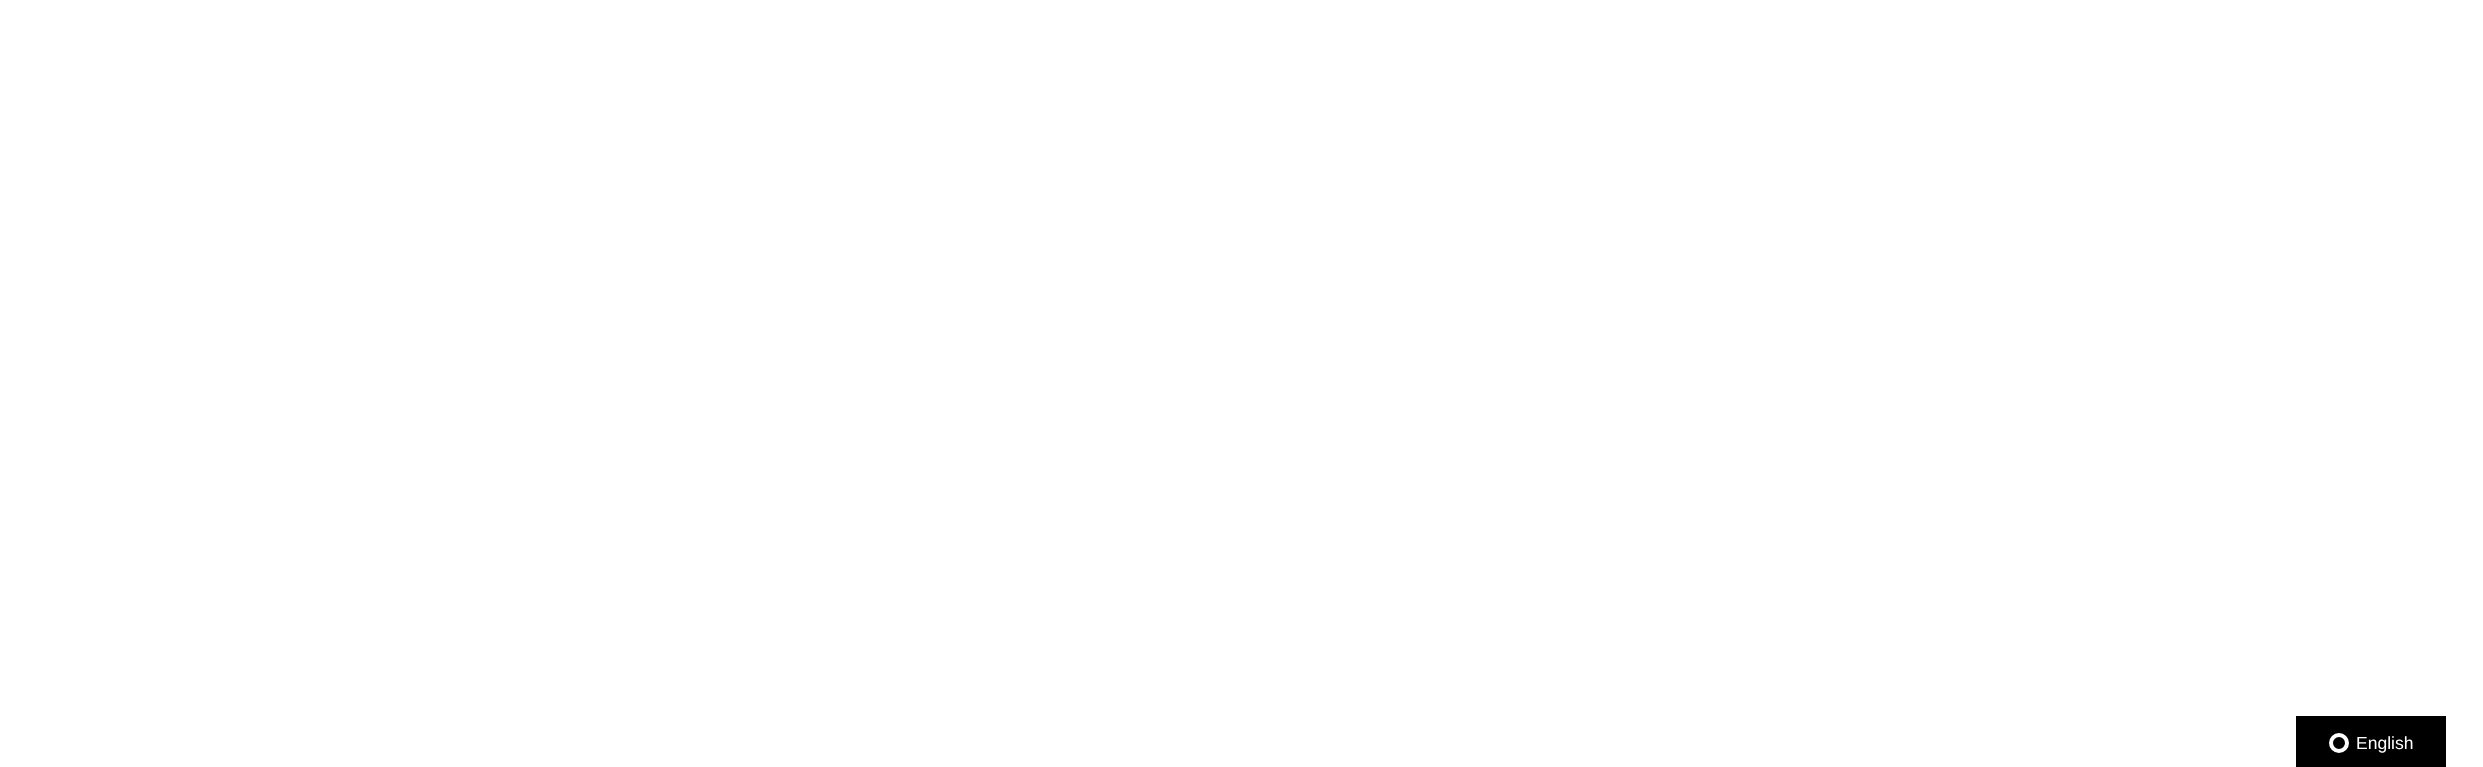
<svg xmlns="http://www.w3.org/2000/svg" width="2483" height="767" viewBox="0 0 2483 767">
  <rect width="100%" height="100%" fill="#fff"/>
  <path d="M2296 716h150v51H2296z" fill="#000"/>
  <circle cx="2339" cy="743" r="8" fill="none" stroke="#fff" stroke-width="4"/>
  <text x="2356" y="749" font-family="Liberation Sans" font-size="17.5" fill="#fff">English</text>
</svg>
